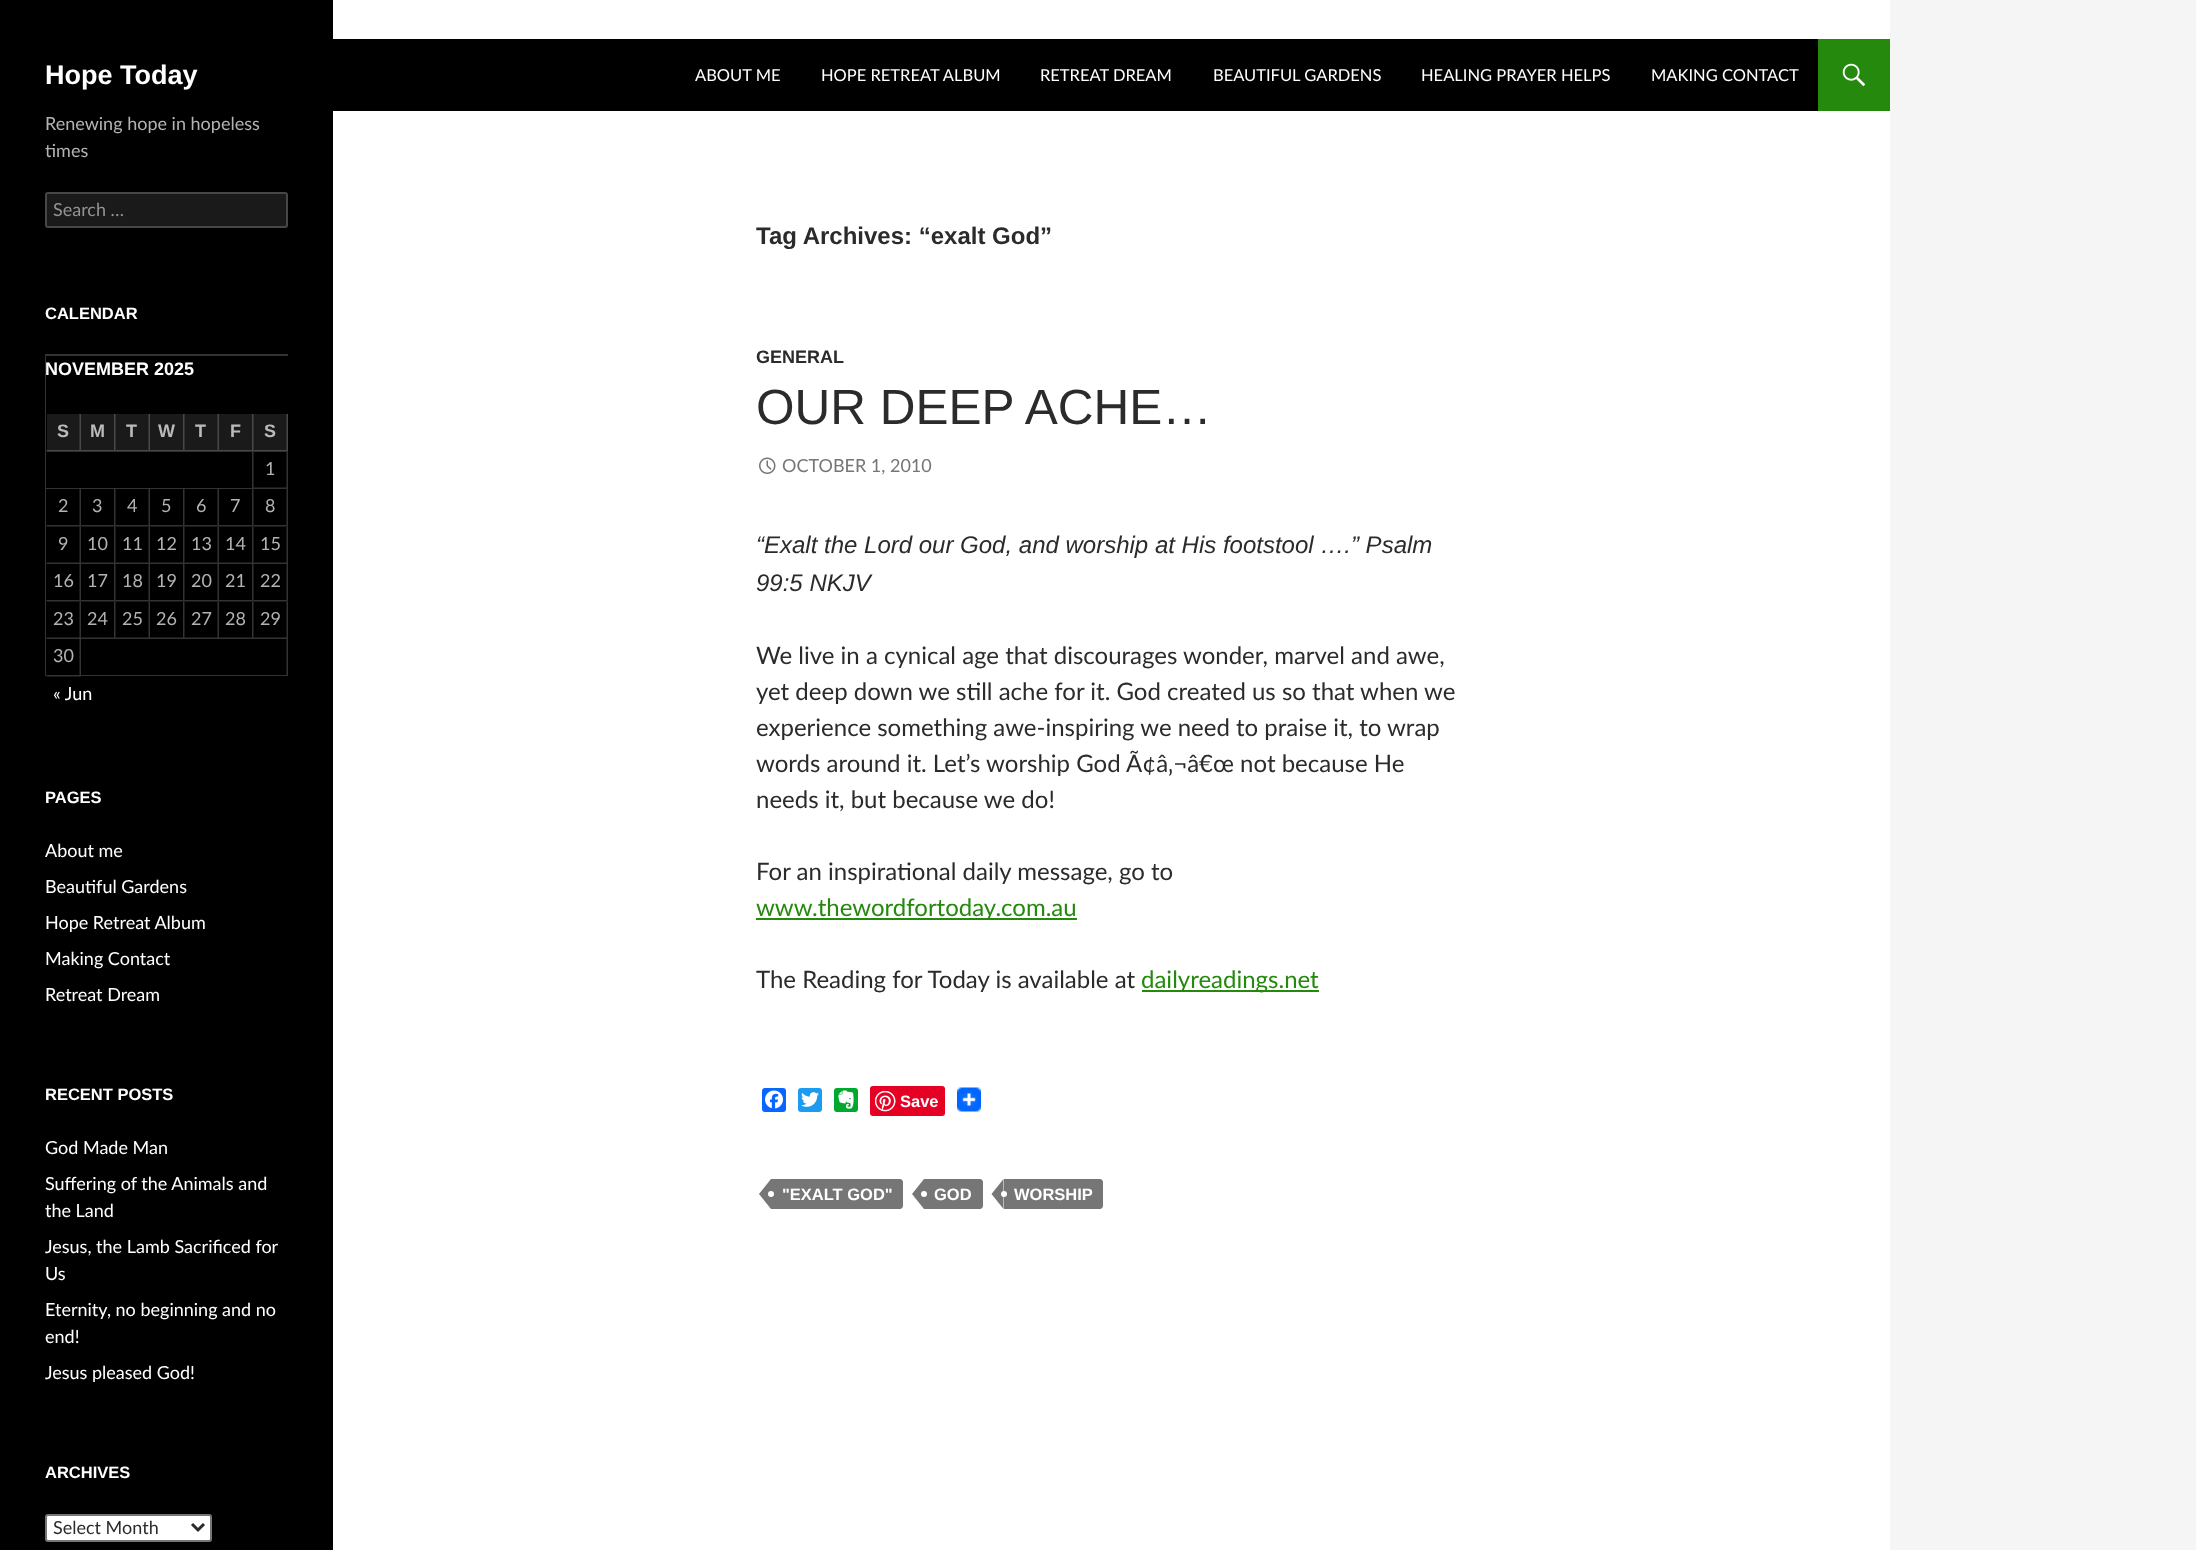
<svg xmlns="http://www.w3.org/2000/svg" width="2196" height="1550" viewBox="0 0 2196 1550">
  <rect width="100%" height="100%" fill="#f5f5f5"/>
  <path d="M333 0h1557v1550H333z" fill="#fff"/>
  <path d="M0 0h333v1550H0z" fill="#000"/>
  <path d="M333 39h1485v72H333z" fill="#000"/>
  <path d="M1818 39h72v72H1818z" fill="#24890d"/>
  <image x="1842" y="63" width="24" height="24" href="img/1.png"/>
  <rect x="45" y="192" width="243" height="36" rx="3" fill="#1a1a1a"/>
  <rect x="46" y="193" width="241" height="34" rx="2" fill="none" stroke="#ffffff33" stroke-width="2"/>
  <path d="M45 354H288V356H46Z" fill="#333"/>
  <path d="M45 676V354L46 356V676Z" fill="#ffffff33"/>
  <path d="M47 414h241v38H47z" fill="#1a1a1a"/>
  <path d="M81 414V451.5L79.5 450V414Z" fill="#484848"/>
  <path d="M81 451.5H46.5V450H79.5Z" fill="#ffffff33"/>
  <path d="M115.5 414V451.5L114 450V414Z" fill="#484848"/>
  <path d="M115.5 451.5H81V450H114Z" fill="#ffffff33"/>
  <path d="M150 414V451.5L148.5 450V414Z" fill="#484848"/>
  <path d="M150 451.5H115.5V450H148.5Z" fill="#ffffff33"/>
  <path d="M184.5 414V451.5L183 450V414Z" fill="#484848"/>
  <path d="M184.5 451.5H150V450H183Z" fill="#ffffff33"/>
  <path d="M219 414V451.5L217.5 450V414Z" fill="#484848"/>
  <path d="M219 451.5H184.5V450H217.5Z" fill="#ffffff33"/>
  <path d="M253.5 414V451.5L252 450V414Z" fill="#484848"/>
  <path d="M253.5 451.5H219V450H252Z" fill="#ffffff33"/>
  <path d="M288 414V451.5L286.5 450V414Z" fill="#484848"/>
  <path d="M288 451.5H253.5V450H286.5Z" fill="#ffffff33"/>
  <path d="M253.5 451.5V489L252 487.5V451.5Z" fill="#333"/>
  <path d="M254 489H46V488H252Z" fill="#ffffff33"/>
  <path d="M288 451.5V489L286.5 487.5V451.5Z" fill="#333"/>
  <path d="M288 489H253.5V487.5H286.5Z" fill="#ffffff33"/>
  <path d="M81 489V526.5L79.5 525V489Z" fill="#333"/>
  <path d="M81 526.5H46.5V525H79.5Z" fill="#ffffff33"/>
  <path d="M115.5 489V526.5L114 525V489Z" fill="#333"/>
  <path d="M115.5 526.5H81V525H114Z" fill="#ffffff33"/>
  <path d="M150 489V526.5L148.5 525V489Z" fill="#333"/>
  <path d="M150 526.5H115.5V525H148.5Z" fill="#ffffff33"/>
  <path d="M184.5 489V526.5L183 525V489Z" fill="#333"/>
  <path d="M184.5 526.5H150V525H183Z" fill="#ffffff33"/>
  <path d="M219 489V526.5L217.5 525V489Z" fill="#333"/>
  <path d="M219 526.5H184.5V525H217.5Z" fill="#ffffff33"/>
  <path d="M253.5 489V526.5L252 525V489Z" fill="#333"/>
  <path d="M253.5 526.5H219V525H252Z" fill="#ffffff33"/>
  <path d="M288 489V526.5L286.5 525V489Z" fill="#333"/>
  <path d="M288 526.5H253.5V525H286.5Z" fill="#ffffff33"/>
  <path d="M81 526.5V564L79.5 562.5V526.5Z" fill="#333"/>
  <path d="M81 564H46.5V562.5H79.5Z" fill="#ffffff33"/>
  <path d="M115.5 526.5V564L114 562.5V526.5Z" fill="#333"/>
  <path d="M115.5 564H81V562.5H114Z" fill="#ffffff33"/>
  <path d="M150 526.5V564L148.5 562.5V526.5Z" fill="#333"/>
  <path d="M150 564H115.5V562.5H148.5Z" fill="#ffffff33"/>
  <path d="M184.5 526.5V564L183 562.5V526.5Z" fill="#333"/>
  <path d="M184.5 564H150V562.5H183Z" fill="#ffffff33"/>
  <path d="M219 526.5V564L217.5 562.5V526.5Z" fill="#333"/>
  <path d="M219 564H184.5V562.5H217.5Z" fill="#ffffff33"/>
  <path d="M253.5 526.5V564L252 562.5V526.5Z" fill="#333"/>
  <path d="M253.5 564H219V562.5H252Z" fill="#ffffff33"/>
  <path d="M288 526.5V564L286.5 562.5V526.5Z" fill="#333"/>
  <path d="M288 564H253.5V562.5H286.5Z" fill="#ffffff33"/>
  <path d="M81 564V601.5L79.5 600V564Z" fill="#333"/>
  <path d="M81 601.5H46.5V600H79.5Z" fill="#ffffff33"/>
  <path d="M115.5 564V601.5L114 600V564Z" fill="#333"/>
  <path d="M115.5 601.5H81V600H114Z" fill="#ffffff33"/>
  <path d="M150 564V601.5L148.5 600V564Z" fill="#333"/>
  <path d="M150 601.5H115.5V600H148.5Z" fill="#ffffff33"/>
  <path d="M184.5 564V601.5L183 600V564Z" fill="#333"/>
  <path d="M184.5 601.5H150V600H183Z" fill="#ffffff33"/>
  <path d="M219 564V601.5L217.5 600V564Z" fill="#333"/>
  <path d="M219 601.5H184.5V600H217.5Z" fill="#ffffff33"/>
  <path d="M253.5 564V601.5L252 600V564Z" fill="#333"/>
  <path d="M253.5 601.5H219V600H252Z" fill="#ffffff33"/>
  <path d="M288 564V601.5L286.5 600V564Z" fill="#333"/>
  <path d="M288 601.5H253.5V600H286.5Z" fill="#ffffff33"/>
  <path d="M81 601.5V639L79.5 637.5V601.5Z" fill="#333"/>
  <path d="M81 639H46.5V637.5H79.5Z" fill="#ffffff33"/>
  <path d="M115.5 601.5V639L114 637.5V601.5Z" fill="#333"/>
  <path d="M115.5 639H81V637.5H114Z" fill="#ffffff33"/>
  <path d="M150 601.5V639L148.5 637.5V601.5Z" fill="#333"/>
  <path d="M150 639H115.5V637.5H148.5Z" fill="#ffffff33"/>
  <path d="M184.5 601.5V639L183 637.5V601.5Z" fill="#333"/>
  <path d="M184.5 639H150V637.5H183Z" fill="#ffffff33"/>
  <path d="M219 601.5V639L217.5 637.5V601.5Z" fill="#333"/>
  <path d="M219 639H184.5V637.5H217.5Z" fill="#ffffff33"/>
  <path d="M253.5 601.5V639L252 637.5V601.5Z" fill="#333"/>
  <path d="M253.5 639H219V637.5H252Z" fill="#ffffff33"/>
  <path d="M288 601.5V639L286.5 637.5V601.5Z" fill="#333"/>
  <path d="M288 639H253.5V637.5H286.5Z" fill="#ffffff33"/>
  <path d="M81 639V676.5L79.5 675V639Z" fill="#333"/>
  <path d="M81 676.5H46.5V675H79.5Z" fill="#ffffff33"/>
  <path d="M288 639V676.5L286.5 675V639Z" fill="#333"/>
  <path d="M288 676H81V675H286Z" fill="#ffffff33"/>
  <rect x="46" y="1515" width="165" height="26" rx="2" fill="#fff" stroke="#767676" stroke-width="2"/>
  <path d="M192 1524L198 1530L204 1524" fill="none" stroke="#2b2b2b" stroke-width="3"/>
  <image x="759" y="457" width="17" height="17" href="img/2.png"/>
  <path d="M756 918h321v2H756z" fill="#24890d"/>
  <path d="M1142 990h177v2H1142z" fill="#24890d"/>
  <rect x="762" y="1088" width="24" height="24" rx="3" fill="#0866ff"/>
  <image x="765" y="1090" width="18" height="19" href="img/3.png"/>
  <rect x="798" y="1088" width="24" height="24" rx="3" fill="#1d9bf0"/>
  <image x="801" y="1092" width="18" height="15" href="img/4.png"/>
  <rect x="834" y="1088" width="24" height="24" rx="3" fill="#00a82d"/>
  <image x="838" y="1090" width="16" height="19" href="img/5.png"/>
  <rect x="870" y="1086" width="75" height="30" rx="3" fill="#e60023"/>
  <image x="875" y="1091" width="21" height="21" href="img/6.png"/>
  <image x="957" y="1087" width="24" height="25" href="img/7.png"/>
  <path d="M771 1179H900C901.5 1179 903 1180.5 903 1182V1206C903 1207.5 901.5 1209 900 1209H771Z" fill="#767676"/>
  <path d="M771 1179V1209L759 1194Z" fill="#767676"/>
  <circle cx="771" cy="1194" r="3" fill="#fff"/>
  <path d="M924 1179H980C981.5 1179 983 1180.5 983 1182V1206C983 1207.5 981.5 1209 980 1209H924Z" fill="#767676"/>
  <path d="M924 1179V1209L912 1194Z" fill="#767676"/>
  <circle cx="924" cy="1194" r="3" fill="#fff"/>
  <path d="M1004 1179H1100C1101.5 1179 1103 1180.5 1103 1182V1206C1103 1207.5 1101.5 1209 1100 1209H1004Z" fill="#767676"/>
  <path d="M1003.5 1179V1209L991.5 1194Z" fill="#767676"/>
  <circle cx="1004" cy="1194" r="3" fill="#fff"/>
  <text x="45" y="84" font-family="Liberation Sans" font-size="27" font-weight="bold" fill="#fff">Hope Today</text>
  <g font-family="Lato" font-size="16.5" fill="#fff">
    <text x="695" y="81">ABOUT ME</text>
    <text x="821" y="81">HOPE RETREAT ALBUM</text>
    <text x="1040" y="81">RETREAT DREAM</text>
    <text x="1213" y="81">BEAUTIFUL GARDENS</text>
    <text x="1421" y="81">HEALING PRAYER HELPS</text>
    <text x="1651" y="81">MAKING CONTACT</text>
  </g>
  <g font-family="Lato" font-size="18" fill="#b3b3b3">
    <text x="45" y="130">Renewing hope in hopeless</text>
    <text x="45" y="157">times</text>
  </g>
  <text x="53" y="216" font-family="Lato" font-size="18" fill="#939393">Search …</text>
  <text x="45" y="319" font-family="Liberation Sans" font-size="16.5" font-weight="bold" fill="#fff">CALENDAR</text>
  <text x="45" y="375" font-family="Liberation Sans" font-size="18" font-weight="bold" fill="#fff">NOVEMBER 2025</text>
  <g font-family="Liberation Sans" font-size="18" font-weight="bold" fill="#bababa">
    <text x="57" y="437">S</text>
    <text x="90" y="437">M</text>
    <text x="126" y="437">T</text>
    <text x="158" y="437">W</text>
    <text x="195" y="437">T</text>
    <text x="230" y="437">F</text>
    <text x="264" y="437">S</text>
  </g>
  <g font-family="Lato" font-size="18" fill="#b3b3b3">
    <text x="265" y="475">1</text>
    <text x="58" y="512">2</text>
    <text x="92" y="512">3</text>
    <text x="127" y="512">4</text>
    <text x="161" y="512">5</text>
    <text x="196" y="512">6</text>
    <text x="230" y="512">7</text>
    <text x="265" y="512">8</text>
    <text x="58" y="550">9</text>
    <text x="87" y="550">10</text>
    <text x="122" y="550">11</text>
    <text x="156" y="550">12</text>
    <text x="191" y="550">13</text>
    <text x="225" y="550">14</text>
    <text x="260" y="550">15</text>
    <text x="53" y="587">16</text>
    <text x="87" y="587">17</text>
    <text x="122" y="587">18</text>
    <text x="156" y="587">19</text>
    <text x="191" y="587">20</text>
    <text x="225" y="587">21</text>
    <text x="260" y="587">22</text>
    <text x="53" y="625">23</text>
    <text x="87" y="625">24</text>
    <text x="122" y="625">25</text>
    <text x="156" y="625">26</text>
    <text x="191" y="625">27</text>
    <text x="225" y="625">28</text>
    <text x="260" y="625">29</text>
    <text x="53" y="662">30</text>
  </g>
  <text x="53" y="700" font-family="Lato" font-size="18" fill="#fff">« Jun</text>
  <text x="45" y="803" font-family="Liberation Sans" font-size="16.5" font-weight="bold" fill="#fff">PAGES</text>
  <g font-family="Lato" font-size="18" fill="#fff">
    <text x="45" y="857">About me</text>
    <text x="45" y="893">Beautiful Gardens</text>
    <text x="45" y="929">Hope Retreat Album</text>
    <text x="45" y="965">Making Contact</text>
    <text x="45" y="1001">Retreat Dream</text>
  </g>
  <text x="45" y="1100" font-family="Liberation Sans" font-size="16.5" font-weight="bold" fill="#fff">RECENT POSTS</text>
  <g font-family="Lato" font-size="18" fill="#fff">
    <text x="45" y="1154">God Made Man</text>
    <text x="45" y="1190">Suffering of the Animals and</text>
    <text x="45" y="1217">the Land</text>
    <text x="45" y="1253">Jesus, the Lamb Sacrificed for</text>
    <text x="45" y="1280">Us</text>
    <text x="45" y="1316">Eternity, no beginning and no</text>
    <text x="45" y="1343">end!</text>
    <text x="45" y="1379">Jesus pleased God!</text>
  </g>
  <text x="45" y="1478" font-family="Liberation Sans" font-size="16.5" font-weight="bold" fill="#fff">ARCHIVES</text>
  <text x="53" y="1534" font-family="Lato" font-size="18" fill="#2b2b2b">Select Month</text>
  <text x="756" y="244" font-family="Liberation Sans" font-size="24" font-weight="bold" fill="#2b2b2b">Tag Archives: “exalt God”</text>
  <text x="756" y="363" font-family="Liberation Sans" font-size="18" font-weight="bold" fill="#2b2b2b">GENERAL</text>
  <text x="756" y="424" font-family="Liberation Sans" font-size="49.5" fill="#2b2b2b">OUR DEEP ACHE…</text>
  <text x="782" y="472" font-family="Lato" font-size="18" fill="#767676">OCTOBER 1, 2010</text>
  <g font-family="Liberation Sans" font-size="24" font-style="italic" fill="#2b2b2b">
    <text x="756" y="553">“Exalt the Lord our God, and worship at His footstool ….” Psalm</text>
    <text x="756" y="591">99:5 NKJV</text>
  </g>
  <g font-family="Lato" font-size="24" fill="#2b2b2b">
    <text x="756" y="664">We live in a cynical age that discourages wonder, marvel and awe,</text>
    <text x="756" y="700">yet deep down we still ache for it. God created us so that when we</text>
    <text x="756" y="736">experience something awe-inspiring we need to praise it, to wrap</text>
    <text x="756" y="772">words around it. Let’s worship God Ã¢â‚¬â€œ not because He</text>
    <text x="756" y="808">needs it, but because we do!</text>
    <text x="756" y="880">For an inspirational daily message, go to</text>
  </g>
  <text x="756" y="916" font-family="Lato" font-size="24" fill="#24890d">www.thewordfortoday.com.au</text>
  <text x="756" y="988" font-family="Lato" font-size="24" fill="#2b2b2b">The Reading for Today is available at</text>
  <text x="1141" y="988" font-family="Lato" font-size="24" fill="#24890d">dailyreadings.net</text>
  <g font-family="Liberation Sans" font-size="16.5" font-weight="bold" fill="#fff">
    <text x="900" y="1107">Save</text>
    <text x="782" y="1200">"EXALT GOD"</text>
    <text x="934" y="1200">GOD</text>
    <text x="1014" y="1200">WORSHIP</text>
  </g>
</svg>
